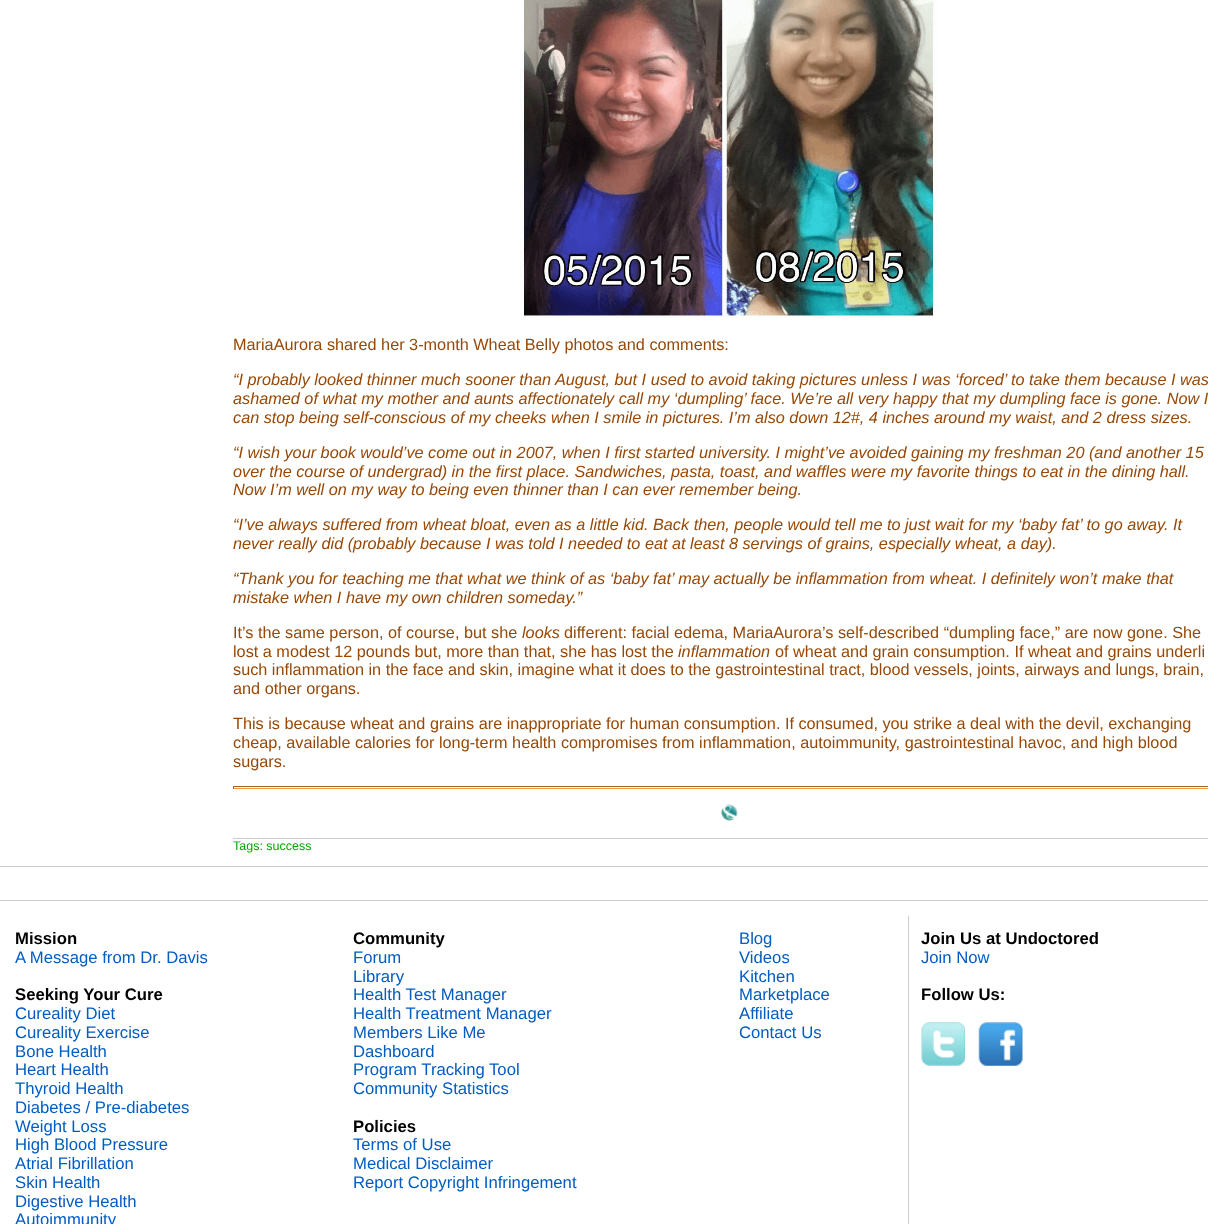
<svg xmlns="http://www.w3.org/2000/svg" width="1208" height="1224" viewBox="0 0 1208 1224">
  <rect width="100%" height="100%" fill="#fff"/>
  <image x="520" y="0" width="418" height="318" href="img/1.png"/>
  <path d="M233 786h975v1H233z" fill="#a5642f"/>
  <path d="M233 788h975v1H233z" fill="#f79646"/>
  <path d="M233 786h1v3H233z" fill="#a5642f"/>
  <image x="721" y="804" width="17" height="17" href="img/2.png"/>
  <path d="M233 838h975v1H233z" fill="#ccc"/>
  <path d="M0 866h1208v1H0z" fill="#ccc"/>
  <path d="M0 900h1208v1H0z" fill="#ccc"/>
  <path d="M908 916h1v308H908z" fill="#ccc"/>
  <image x="921" y="1022" width="44" height="44" href="img/3.png"/>
  <image x="978" y="1022" width="45" height="44" href="img/4.png"/>
  <text x="233" y="350" font-family="Liberation Sans" font-size="16.25" fill="#974806">MariaAurora shared her 3-month Wheat Belly photos and comments:</text>
  <g font-family="Liberation Sans" font-size="16.25" font-style="italic" fill="#974806">
    <text x="233" y="385">“I probably looked thinner much sooner than August, but I used to avoid taking pictures unless I was ‘forced’ to take them because I was</text>
    <text x="233" y="404">ashamed of what my mother and aunts affectionately call my ‘dumpling’ face. We’re all very happy that my dumpling face is gone. Now I</text>
    <text x="233" y="423">can stop being self-conscious of my cheeks when I smile in pictures. I’m also down 12#, 4 inches around my waist, and 2 dress sizes.</text>
    <text x="233" y="458">“I wish your book would’ve come out in 2007, when I first started university. I might’ve avoided gaining my freshman 20 (and another 15</text>
    <text x="233" y="477">over the course of undergrad) in the first place. Sandwiches, pasta, toast, and waffles were my favorite things to eat in the dining hall.</text>
    <text x="233" y="495">Now I’m well on my way to being even thinner than I can ever remember being.</text>
    <text x="233" y="530">“I’ve always suffered from wheat bloat, even as a little kid. Back then, people would tell me to just wait for my ‘baby fat’ to go away. It</text>
    <text x="233" y="549">never really did (probably because I was told I needed to eat at least 8 servings of grains, especially wheat, a day).</text>
    <text x="233" y="584">“Thank you for teaching me that what we think of as ‘baby fat’ may actually be inflammation from wheat. I definitely won’t make that</text>
    <text x="233" y="603">mistake when I have my own children someday.”</text>
  </g>
  <text x="233" y="638" font-family="Liberation Sans" font-size="16.25" fill="#974806">It’s the same person, of course, but she</text>
  <text x="522" y="638" font-family="Liberation Sans" font-size="16.25" font-style="italic" fill="#974806">looks</text>
  <g font-family="Liberation Sans" font-size="16.25" fill="#974806">
    <text x="564" y="638">different: facial edema, MariaAurora’s self-described “dumpling face,” are now gone. She</text>
    <text x="233" y="657">lost a modest 12 pounds but, more than that, she has lost the</text>
  </g>
  <text x="678" y="657" font-family="Liberation Sans" font-size="16.25" font-style="italic" fill="#974806">inflammation</text>
  <g font-family="Liberation Sans" font-size="16.25" fill="#974806">
    <text x="775" y="657">of wheat and grain consumption. If wheat and grains underli</text>
    <text x="233" y="675">such inflammation in the face and skin, imagine what it does to the gastrointestinal tract, blood vessels, joints, airways and lungs, brain,</text>
    <text x="233" y="694">and other organs.</text>
    <text x="233" y="729">This is because wheat and grains are inappropriate for human consumption. If consumed, you strike a deal with the devil, exchanging</text>
    <text x="233" y="748">cheap, available calories for long-term health compromises from inflammation, autoimmunity, gastrointestinal havoc, and high blood</text>
    <text x="233" y="767">sugars.</text>
  </g>
  <text x="233" y="850" font-family="Liberation Sans" font-size="12.5" fill="#0a0">Tags: success</text>
  <text x="15" y="944" font-family="Liberation Sans" font-size="16.7" font-weight="bold" fill="#000">Mission</text>
  <text x="15" y="963" font-family="Liberation Sans" font-size="16.7" fill="#025cc2">A Message from Dr. Davis</text>
  <text x="15" y="1000" font-family="Liberation Sans" font-size="16.7" font-weight="bold" fill="#000">Seeking Your Cure</text>
  <g font-family="Liberation Sans" font-size="16.7" fill="#025cc2">
    <text x="15" y="1019">Cureality Diet</text>
    <text x="15" y="1038">Cureality Exercise</text>
    <text x="15" y="1057">Bone Health</text>
    <text x="15" y="1075">Heart Health</text>
    <text x="15" y="1094">Thyroid Health</text>
    <text x="15" y="1113">Diabetes / Pre-diabetes</text>
    <text x="15" y="1132">Weight Loss</text>
    <text x="15" y="1150">High Blood Pressure</text>
    <text x="15" y="1169">Atrial Fibrillation</text>
    <text x="15" y="1188">Skin Health</text>
    <text x="15" y="1207">Digestive Health</text>
    <text x="15" y="1225">Autoimmunity</text>
  </g>
  <text x="353" y="944" font-family="Liberation Sans" font-size="16.7" font-weight="bold" fill="#000">Community</text>
  <g font-family="Liberation Sans" font-size="16.7" fill="#025cc2">
    <text x="353" y="963">Forum</text>
    <text x="353" y="982">Library</text>
    <text x="353" y="1000">Health Test Manager</text>
    <text x="353" y="1019">Health Treatment Manager</text>
    <text x="353" y="1038">Members Like Me</text>
    <text x="353" y="1057">Dashboard</text>
    <text x="353" y="1075">Program Tracking Tool</text>
    <text x="353" y="1094">Community Statistics</text>
  </g>
  <text x="353" y="1132" font-family="Liberation Sans" font-size="16.7" font-weight="bold" fill="#000">Policies</text>
  <g font-family="Liberation Sans" font-size="16.7" fill="#025cc2">
    <text x="353" y="1150">Terms of Use</text>
    <text x="353" y="1169">Medical Disclaimer</text>
    <text x="353" y="1188">Report Copyright Infringement</text>
    <text x="739" y="944">Blog</text>
    <text x="739" y="963">Videos</text>
    <text x="739" y="982">Kitchen</text>
    <text x="739" y="1000">Marketplace</text>
    <text x="739" y="1019">Affiliate</text>
    <text x="739" y="1038">Contact Us</text>
  </g>
  <text x="921" y="944" font-family="Liberation Sans" font-size="16.7" font-weight="bold" fill="#000">Join Us at Undoctored</text>
  <text x="921" y="963" font-family="Liberation Sans" font-size="16.7" fill="#025cc2">Join Now</text>
  <text x="921" y="1000" font-family="Liberation Sans" font-size="16.7" font-weight="bold" fill="#000">Follow Us:</text>
</svg>
